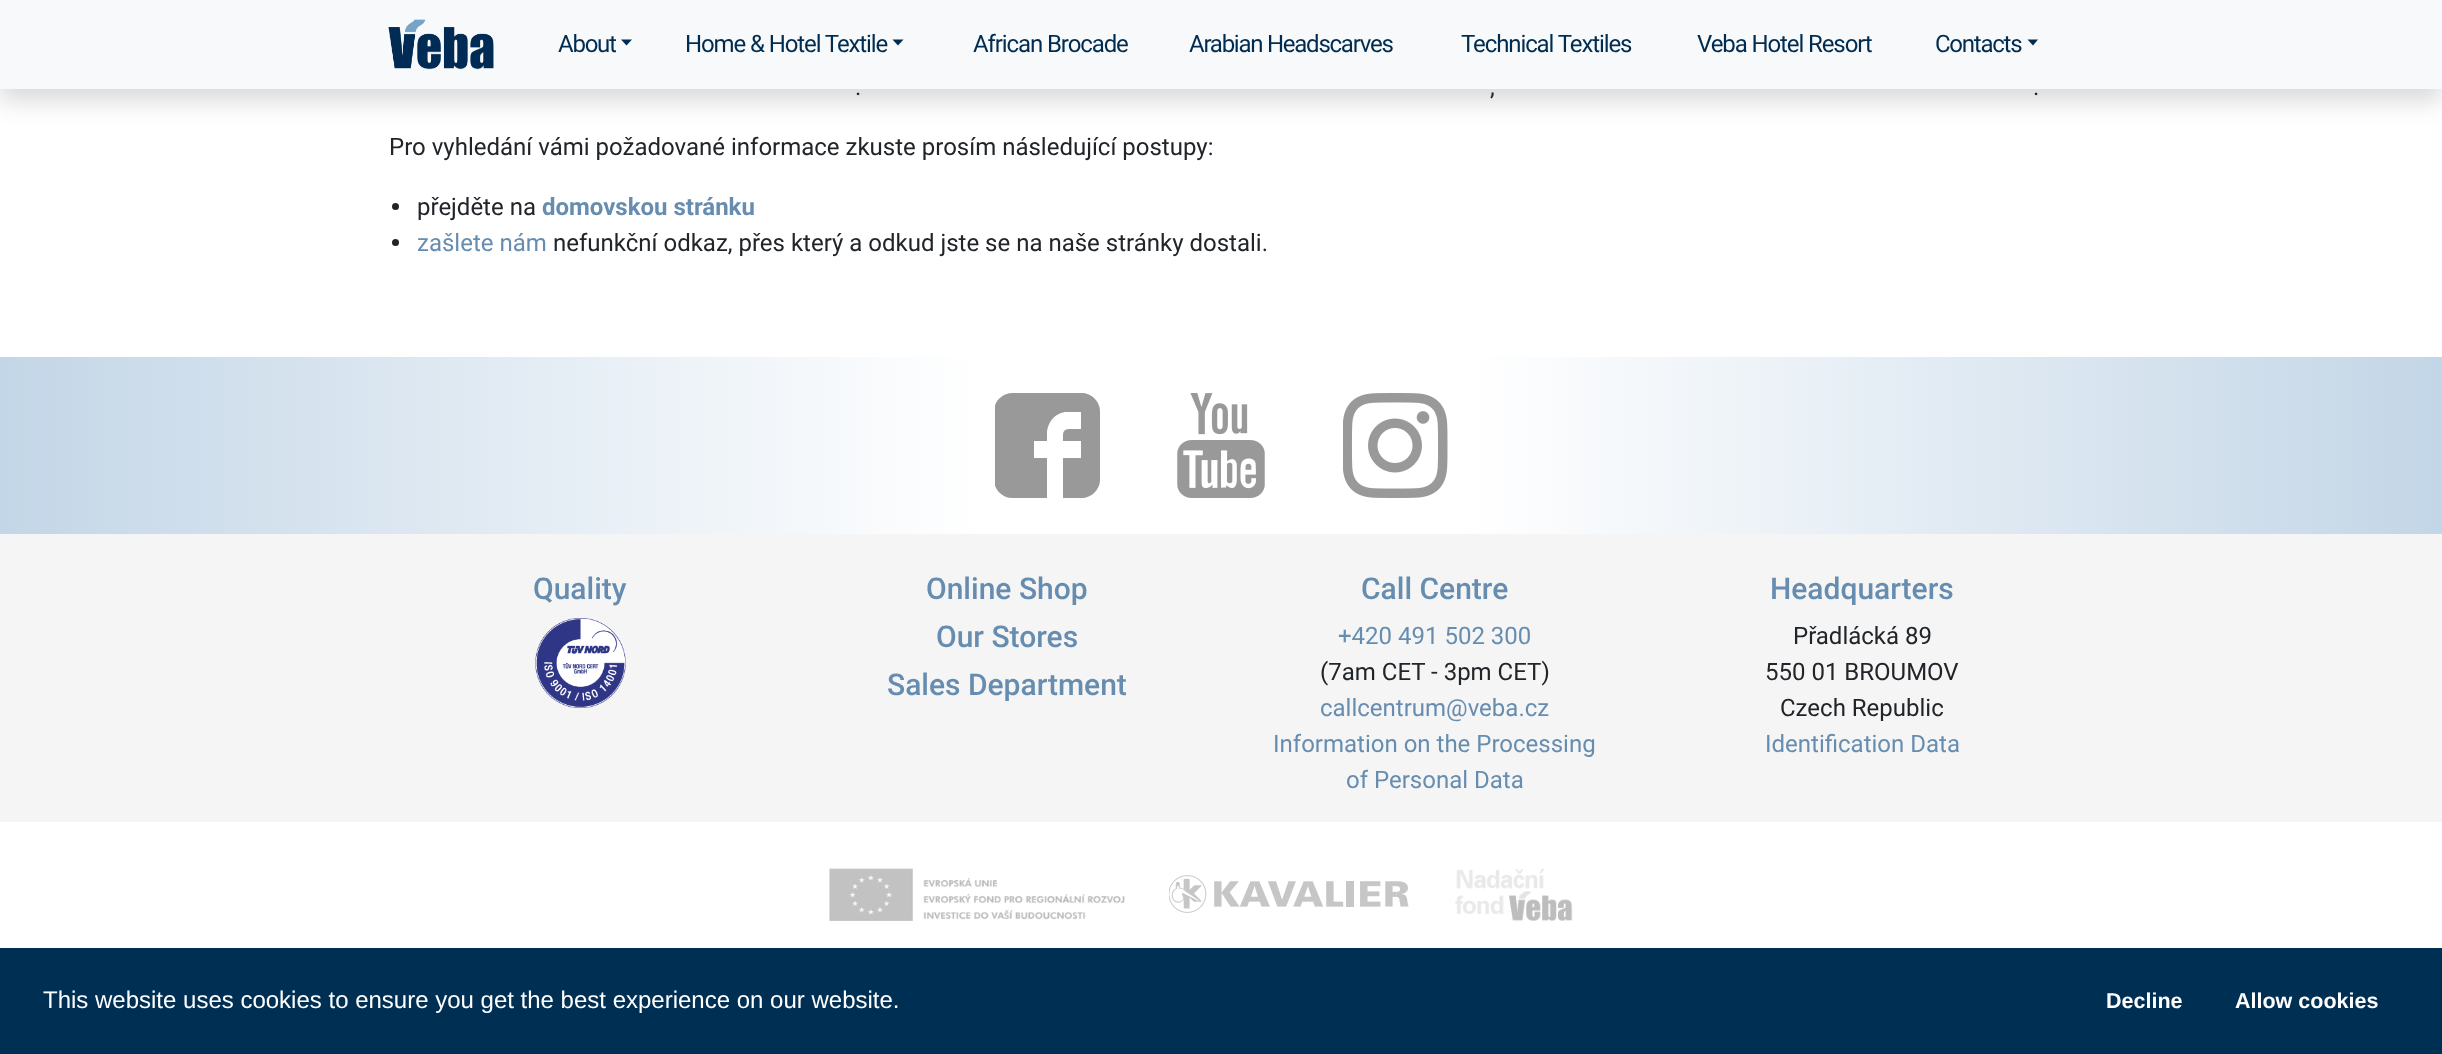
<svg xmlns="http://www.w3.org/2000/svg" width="2442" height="1054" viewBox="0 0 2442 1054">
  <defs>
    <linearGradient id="g1" gradientUnits="userSpaceOnUse" x1="0" y1="446" x2="2442" y2="445"><stop offset="0" stop-color="#c3d6e7"/><stop offset="0.4" stop-color="#fff"/><stop offset="0.6" stop-color="#fff"/><stop offset="1" stop-color="#c3d6e7"/></linearGradient>
    <clipPath id="clip1"><path d="M995 393h105v105H995z"/></clipPath>
  </defs>
  <rect width="100%" height="100%" fill="#fff"/>
  <path d="M0 12h2442v89H0z" fill="#00000026" filter="blur(12px)"/>
  <path d="M0 0h2442v89H0z" fill="#f8f9fa"/>
  <image x="388" y="19" width="106" height="51" href="img/1.png"/>
  <path d="M621 39.5H632L626.5 45.5Z" fill="#002c51"/>
  <path d="M892.5 39.5H903.5L898 45.5Z" fill="#002c51"/>
  <path d="M2027.5 39.5H2038L2033 45.5Z" fill="#002c51"/>
  <circle cx="395.5" cy="206.5" r="3.5" fill="#212529"/>
  <circle cx="395.5" cy="242.5" r="3.5" fill="#212529"/>
  <path d="M0 357h2442v177H0z" fill="url(#g1)"/>
  <g clip-path="url(#clip1)">
    <path d="M1100 411C1100 401 1091 393 1082 393H1012C1003 393 994 401 994 411V480C994 490 1003 498 1012 498H1047V458H1034V441H1047V434C1047 422 1056 412 1067 412H1081V429H1069C1062 429 1063 435 1063 441H1081V458H1063V498H1082C1091 498 1100 490 1100 480Z" fill="#999"/>
  </g>
  <image x="1177" y="393" width="88" height="105" href="img/2.png"/>
  <image x="1343" y="393" width="105" height="105" href="img/3.png"/>
  <path d="M0 534h2442v288H0z" fill="#f5f5f5"/>
  <image x="535" y="618" width="91" height="90" href="img/4.png"/>
  <image x="829" y="868" width="296" height="53" href="img/5.png"/>
  <image x="1169" y="875" width="240" height="38" href="img/6.png"/>
  <image x="1455" y="869" width="118" height="52" href="img/7.png"/>
  <path d="M0 948h2442v106H0z" fill="#002f54"/>
  <text x="558" y="52" font-family="Roboto" font-size="24" letter-spacing="-1.25" fill="#002c51">About</text>
  <g font-family="Roboto" font-size="24" letter-spacing="-1.1" fill="#002c51">
    <text x="685" y="52">Home &amp; Hotel Textile</text>
    <text x="973" y="52">African Brocade</text>
  </g>
  <text x="1189" y="52" font-family="Roboto" font-size="24" letter-spacing="-1.25" fill="#002c51">Arabian Headscarves</text>
  <g font-family="Roboto" font-size="24" letter-spacing="-1.1" fill="#002c51">
    <text x="1461" y="52">Technical Textiles</text>
    <text x="1697" y="52">Veba Hotel Resort</text>
  </g>
  <text x="1935" y="52" font-family="Roboto" font-size="24" letter-spacing="-1.25" fill="#002c51">Contacts</text>
  <g font-family="Roboto" font-size="24" fill="#212529">
    <text x="855" y="95">.</text>
    <text x="1490" y="95">,</text>
    <text x="2033" y="95">.</text>
    <text x="389" y="155">Pro vyhledání vámi požadované informace zkuste prosím následující postupy:</text>
    <text x="417" y="215">přejděte na</text>
  </g>
  <text x="542" y="215" font-family="Roboto" font-size="24" font-weight="bold" fill="#668db0">domovskou stránku</text>
  <text x="417" y="251" font-family="Roboto" font-size="24" fill="#668db0">zašlete nám</text>
  <text x="553" y="251" font-family="Roboto" font-size="24" fill="#212529">nefunkční odkaz, přes který a odkud jste se na naše stránky dostali.</text>
  <g font-family="Roboto" font-size="30" font-weight="500" fill="#668db0">
    <text x="533" y="599">Quality</text>
    <text x="926" y="599">Online Shop</text>
    <text x="936" y="647">Our Stores</text>
    <text x="887" y="695">Sales Department</text>
    <text x="1361" y="599">Call Centre</text>
  </g>
  <text x="1338" y="644" font-family="Roboto" font-size="24" fill="#668db0">+420 491 502 300</text>
  <text x="1320" y="680" font-family="Roboto" font-size="24" fill="#212529">(7am CET - 3pm CET)</text>
  <g font-family="Roboto" font-size="24" fill="#668db0">
    <text x="1320" y="716">callcentrum@veba.cz</text>
    <text x="1273" y="752">Information on the Processing</text>
    <text x="1346" y="788">of Personal Data</text>
  </g>
  <text x="1770" y="599" font-family="Roboto" font-size="30" font-weight="500" fill="#668db0">Headquarters</text>
  <g font-family="Roboto" font-size="24" fill="#212529">
    <text x="1793" y="644">Přadlácká 89</text>
    <text x="1765" y="680">550 01 BROUMOV</text>
    <text x="1780" y="716">Czech Republic</text>
  </g>
  <text x="1765" y="752" font-family="Roboto" font-size="24" fill="#668db0">Identification Data</text>
  <text x="43" y="1008" font-family="Liberation Sans" font-size="24" fill="#fff">This website uses cookies to ensure you get the best experience on our website.</text>
  <g font-family="Liberation Sans" font-size="21.5" font-weight="bold" fill="#fff">
    <text x="2106" y="1008">Decline</text>
    <text x="2235" y="1008">Allow cookies</text>
  </g>
</svg>
